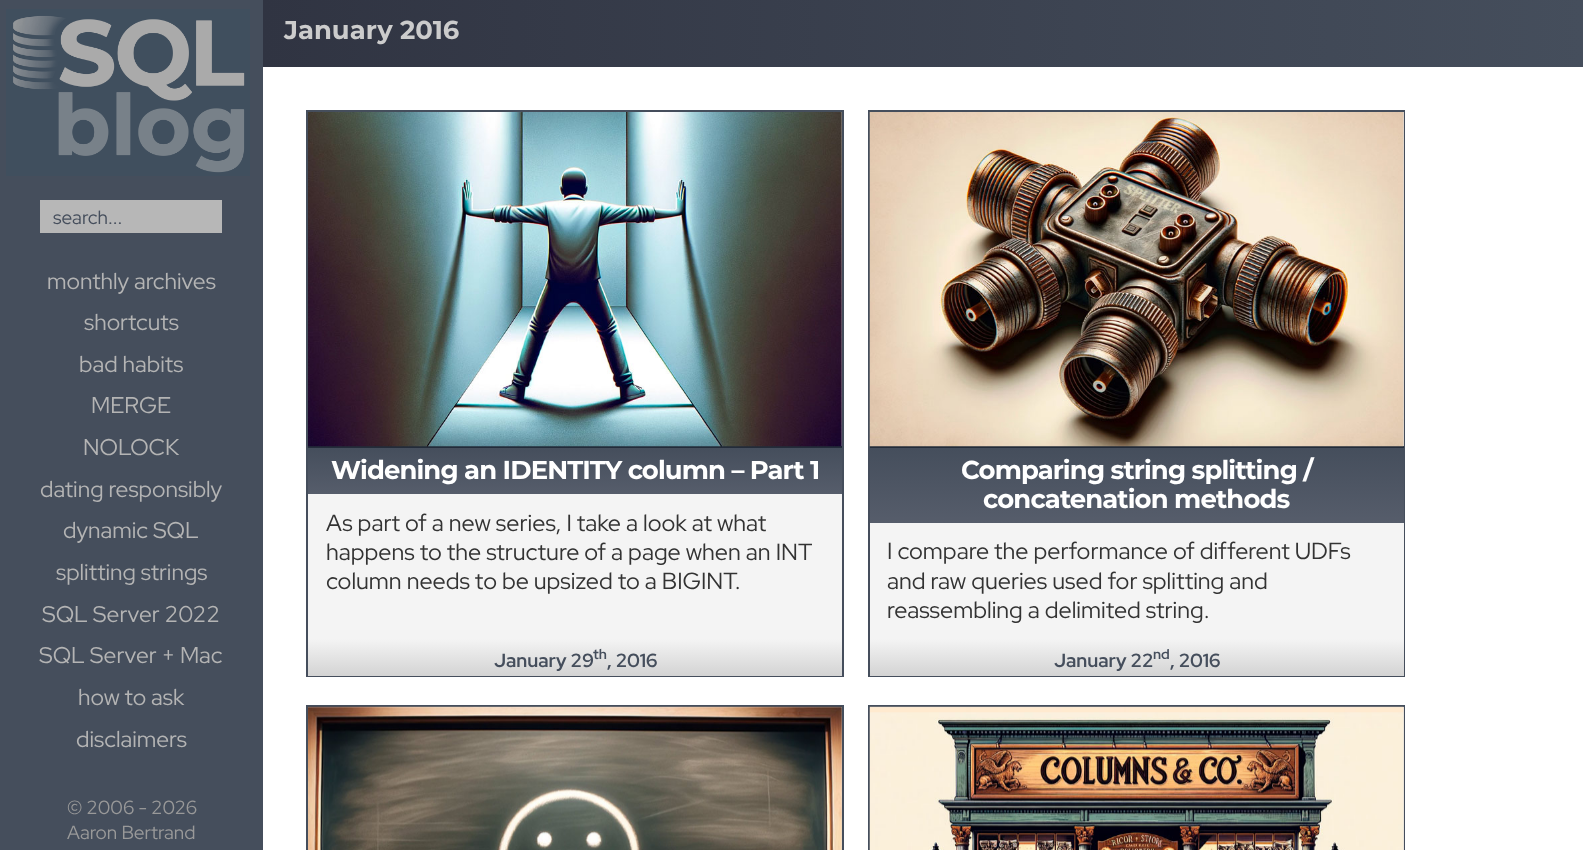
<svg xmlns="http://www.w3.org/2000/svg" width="1583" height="850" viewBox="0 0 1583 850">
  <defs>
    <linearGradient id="g1" gradientUnits="userSpaceOnUse" x1="263" y1="30" x2="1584" y2="30"><stop offset="0" stop-color="#303442"/><stop offset="1" stop-color="#454e5c"/></linearGradient>
    <linearGradient id="g2" gradientUnits="userSpaceOnUse" x1="575" y1="448" x2="575" y2="494"><stop offset="0" stop-color="#454e5c"/><stop offset="1" stop-color="#565d6b"/></linearGradient>
    <linearGradient id="g3" gradientUnits="userSpaceOnUse" x1="575" y1="639" x2="575" y2="676"><stop offset="0" stop-color="#f4f4f4"/><stop offset="1" stop-color="#d3d3d3"/></linearGradient>
    <linearGradient id="g4" gradientUnits="userSpaceOnUse" x1="1137" y1="448" x2="1137" y2="523"><stop offset="0" stop-color="#454e5c"/><stop offset="1" stop-color="#565d6b"/></linearGradient>
    <linearGradient id="g5" gradientUnits="userSpaceOnUse" x1="1137" y1="639" x2="1137" y2="676"><stop offset="0" stop-color="#f4f4f4"/><stop offset="1" stop-color="#d3d3d3"/></linearGradient>
  </defs>
  <rect width="100%" height="100%" fill="#fff"/>
  <path d="M0 0h263v850H0z" fill="#454e5c"/>
  <image x="6" y="9" width="244" height="167" href="img/1.png"/>
  <path d="M40 200h182v33H40z" fill="#b7b7b7"/>
  <path d="M263 0h1320v67H263z" fill="url(#g1)"/>
  <path d="M307 111h536v565H307z" fill="none" stroke="#454e5c" stroke-width="2"/>
  <path d="M308 112h534v527H308z" fill="#f4f4f4"/>
  <path d="M308 446h534v2H308z" fill="#232c3a"/>
  <image x="308" y="112" width="534" height="335" href="img/2.png"/>
  <path d="M308 448h534v46H308z" fill="url(#g2)"/>
  <path d="M308 639h534v37H308z" fill="url(#g3)"/>
  <path d="M869 111h535v565H869z" fill="none" stroke="#454e5c" stroke-width="2"/>
  <path d="M870 523h534v116H870z" fill="#f4f4f4"/>
  <path d="M1403 112h1v334H1403z" fill="#ddd"/>
  <path d="M870 446h534v2H870z" fill="#232c3a"/>
  <image x="869" y="112" width="535" height="335" href="img/3.png"/>
  <path d="M870 448h534v75H870z" fill="url(#g4)"/>
  <path d="M870 639h534v37H870z" fill="url(#g5)"/>
  <path d="M307 706h536v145H307z" fill="none" stroke="#454e5c" stroke-width="2"/>
  <path d="M308 707h534v143H308z" fill="#ddd"/>
  <image x="308" y="706" width="534" height="144" href="img/4.png"/>
  <path d="M869 706h535v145H869z" fill="none" stroke="#454e5c" stroke-width="2"/>
  <path d="M870 707h534v143H870z" fill="#ddd"/>
  <image x="869" y="706" width="535" height="144" href="img/5.png"/>
  <text x="53" y="224" font-family="Red Hat Display" font-size="19" fill="#454e5c">search...</text>
  <g font-family="Red Hat Display" font-size="22.75" fill="#b4b4b4">
    <text x="47" y="289">monthly archives</text>
    <text x="84" y="330">shortcuts</text>
    <text x="79" y="372">bad habits</text>
    <text x="91" y="413">MERGE</text>
    <text x="83" y="455">NOLOCK</text>
    <text x="40" y="497">dating responsibly</text>
    <text x="63" y="538">dynamic SQL</text>
    <text x="56" y="580">splitting strings</text>
    <text x="42" y="622">SQL Server 2022</text>
    <text x="39" y="663">SQL Server + Mac</text>
    <text x="78" y="705">how to ask</text>
    <text x="76" y="747">disclaimers</text>
  </g>
  <g font-family="Red Hat Display" font-size="19" fill="#999">
    <text x="67" y="814">© 2006 - 2026</text>
    <text x="67" y="839">Aaron Bertrand</text>
  </g>
  <text x="284" y="39" font-family="Montserrat" font-size="25.9" font-weight="bold" fill="#ccc">January 2016</text>
  <text x="331" y="479" font-family="Montserrat" font-size="25.9" font-weight="bold" letter-spacing="-0.9" fill="#fff">Widening an IDENTITY column – Part 1</text>
  <g font-family="Red Hat Display" font-size="23.3" fill="#333">
    <text x="326" y="531">As part of a new series, I take a look at what</text>
    <text x="326" y="560">happens to the structure of a page when an INT</text>
    <text x="326" y="589">column needs to be upsized to a BIGINT.</text>
  </g>
  <text x="494" y="667" font-family="Red Hat Display" font-size="19" font-weight="bold" fill="#454e5c">January 29</text>
  <text x="593" y="659" font-family="Red Hat Display" font-size="14" font-weight="bold" fill="#454e5c">th</text>
  <text x="607" y="667" font-family="Red Hat Display" font-size="19" font-weight="bold" fill="#454e5c">, 2016</text>
  <g font-family="Montserrat" font-size="25.9" font-weight="bold" letter-spacing="-0.9" fill="#fff">
    <text x="961" y="479">Comparing string splitting /</text>
    <text x="983" y="508">concatenation methods</text>
  </g>
  <g font-family="Red Hat Display" font-size="23.3" fill="#333">
    <text x="887" y="559">I compare the performance of different UDFs</text>
    <text x="887" y="589">and raw queries used for splitting and</text>
    <text x="887" y="618">reassembling a delimited string.</text>
  </g>
  <text x="1054" y="667" font-family="Red Hat Display" font-size="19" font-weight="bold" fill="#454e5c">January 22</text>
  <text x="1153" y="659" font-family="Red Hat Display" font-size="14" font-weight="bold" fill="#454e5c">nd</text>
  <text x="1170" y="667" font-family="Red Hat Display" font-size="19" font-weight="bold" fill="#454e5c">, 2016</text>
</svg>
